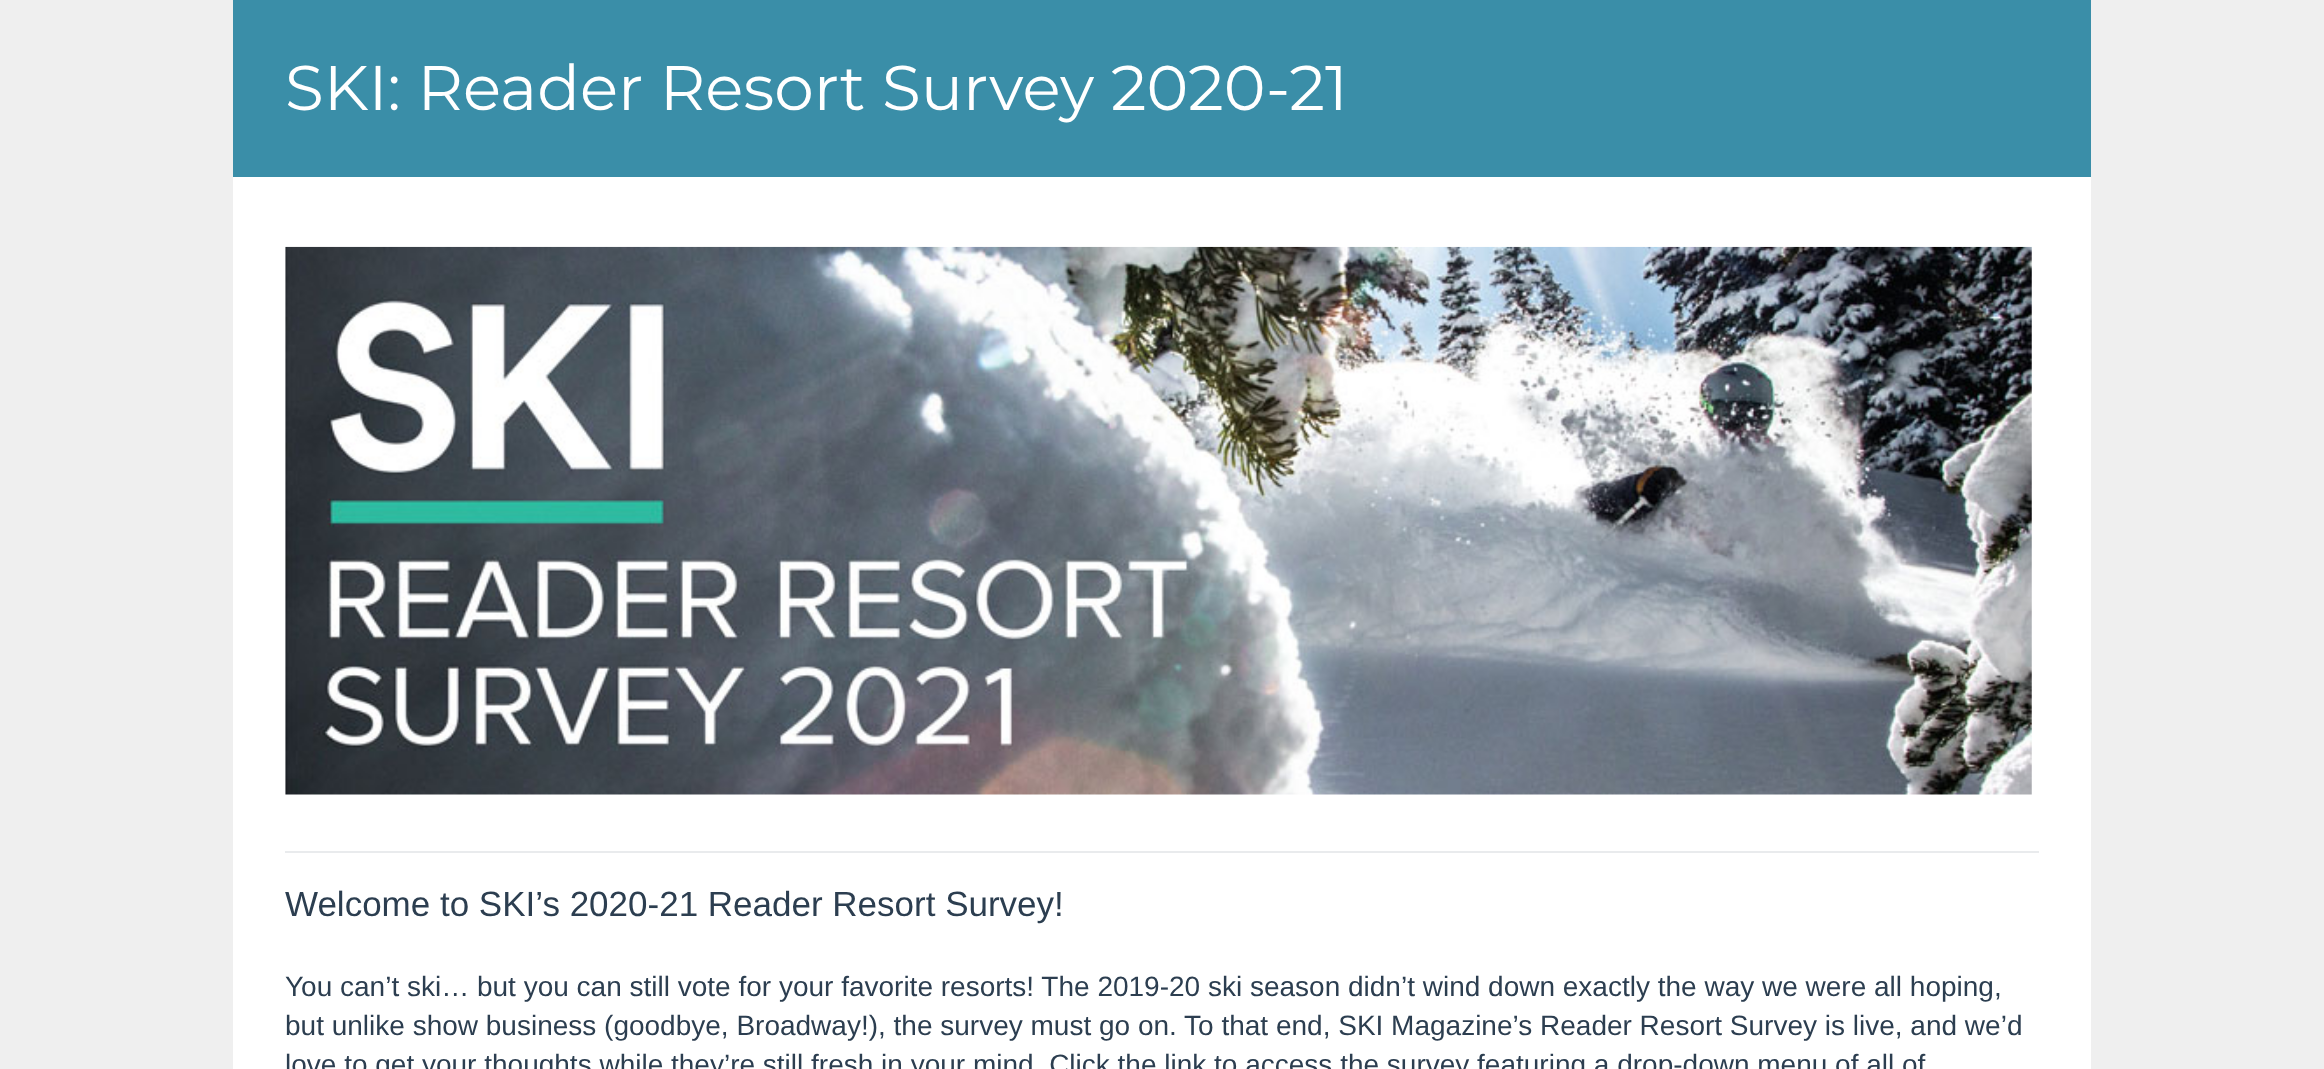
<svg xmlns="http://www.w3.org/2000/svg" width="2324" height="1069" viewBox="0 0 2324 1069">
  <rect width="100%" height="100%" fill="#efefef"/>
  <path d="M233 177h1858v892H233z" fill="#fff"/>
  <path d="M233 0h1858v177H233z" fill="#3a8ea8"/>
  <path d="M285 851h1754v2H285z" fill="#e9ebed"/>
  <image x="285" y="246" width="1747" height="549" href="img/1.png"/>
  <text x="285" y="110" font-family="Montserrat" font-size="63" font-weight="100" fill="#fff">SKI: Reader Resort Survey 2020-21</text>
  <text x="285" y="916" font-family="Liberation Sans" font-size="35" fill="#2c3e50">Welcome to SKI’s 2020-21 Reader Resort Survey!</text>
  <g font-family="Liberation Sans" font-size="28" fill="#2c3e50">
    <text x="285" y="996">You can’t ski… but you can still vote for your favorite resorts! The 2019-20 ski season didn’t wind down exactly the way we were all hoping,</text>
    <text x="285" y="1035">but unlike show business (goodbye, Broadway!), the survey must go on. To that end, SKI Magazine’s Reader Resort Survey is live, and we’d</text>
    <text x="285" y="1074">love to get your thoughts while they’re still fresh in your mind. Click the link to access the survey featuring a drop-down menu of all of</text>
  </g>
</svg>
